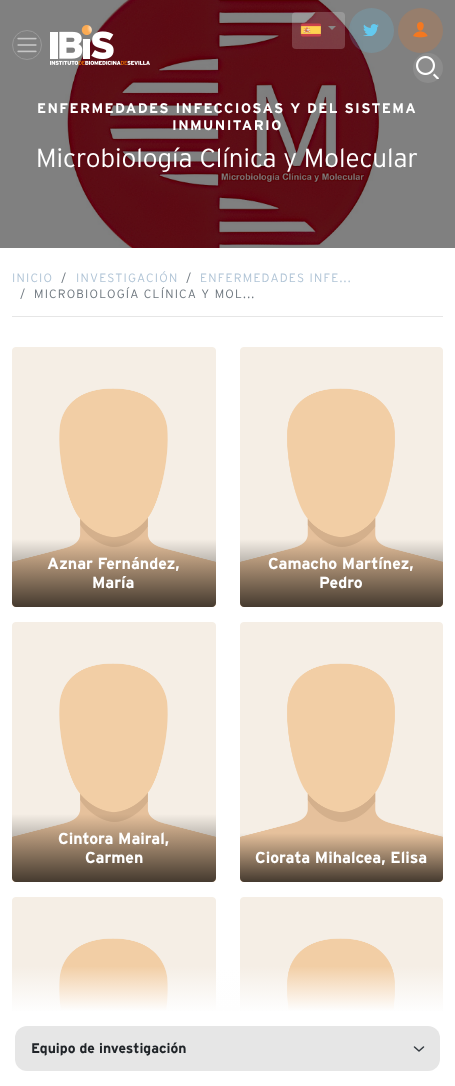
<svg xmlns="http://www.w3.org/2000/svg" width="455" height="1086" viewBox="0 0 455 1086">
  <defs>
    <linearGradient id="g1" gradientUnits="userSpaceOnUse" x1="114" y1="539" x2="114" y2="607"><stop offset="0" stop-color="#000" stop-opacity="0"/><stop offset="1" stop-color="#000" stop-opacity="0.7"/></linearGradient>
    <linearGradient id="g2" gradientUnits="userSpaceOnUse" x1="342" y1="539" x2="342" y2="607"><stop offset="0" stop-color="#000" stop-opacity="0"/><stop offset="1" stop-color="#000" stop-opacity="0.7"/></linearGradient>
    <linearGradient id="g3" gradientUnits="userSpaceOnUse" x1="114" y1="814" x2="114" y2="882"><stop offset="0" stop-color="#000" stop-opacity="0"/><stop offset="1" stop-color="#000" stop-opacity="0.7"/></linearGradient>
    <linearGradient id="g4" gradientUnits="userSpaceOnUse" x1="342" y1="833" x2="342" y2="882"><stop offset="0" stop-color="#000" stop-opacity="0"/><stop offset="1" stop-color="#000" stop-opacity="0.7"/></linearGradient>
    <linearGradient id="g5" gradientUnits="userSpaceOnUse" x1="228" y1="966" x2="228" y2="1011"><stop offset="0" stop-color="#fefefe" stop-opacity="0"/><stop offset="1" stop-color="#fefefe"/></linearGradient>
  </defs>
  <rect width="100%" height="100%" fill="#fff"/>
  <image x="0" y="0" width="455" height="248" href="img/7.png"/>
  <circle cx="27" cy="45" r="14.5" fill="none" stroke="#999"/>
  <image x="17" y="37" width="20" height="16" href="img/1.png"/>
  <image x="50" y="25" width="100" height="40" href="img/2.png"/>
  <rect x="292" y="12" width="53" height="37" rx="4" fill="#f8f9fa33"/>
  <image x="300" y="23" width="21" height="14" href="img/3.png"/>
  <path d="M328 26H336L332 30Z" fill="#888"/>
  <circle cx="371.5" cy="30.5" r="22.5" fill="#63c9ef33"/>
  <image x="363" y="24" width="16" height="12" href="img/4.png"/>
  <circle cx="420.5" cy="30.5" r="22.5" fill="#977e6c"/>
  <image x="413" y="22" width="15" height="16" href="img/5.png"/>
  <circle cx="428" cy="68" r="15" fill="#8c8c8c"/>
  <image x="416" y="56" width="23" height="23" href="img/6.png"/>
  <path d="M12 316h431v1H12z" fill="#e6e6e6"/>
  <image x="12" y="347" width="204" height="260" href="img/8.png"/>
  <path d="M12 539H216V603C216 605 214 607 212 607H16C14 607 12 605 12 603Z" fill="url(#g1)"/>
  <image x="240" y="347" width="203" height="260" href="img/9.png"/>
  <path d="M240 539H443V603C443 605 441 607 439 607H244C242 607 240 605 240 603Z" fill="url(#g2)"/>
  <image x="12" y="622" width="204" height="260" href="img/8.png"/>
  <path d="M12 814H216V878C216 880 214 882 212 882H16C14 882 12 880 12 878Z" fill="url(#g3)"/>
  <image x="240" y="622" width="203" height="260" href="img/9.png"/>
  <path d="M240 833H443V878C443 880 441 882 439 882H244C242 882 240 880 240 878Z" fill="url(#g4)"/>
  <image x="12" y="897" width="204" height="114" href="img/10.png"/>
  <image x="240" y="897" width="203" height="114" href="img/11.png"/>
  <path d="M12 967h431v44H12z" fill="url(#g5)"/>
  <rect x="15" y="1026" width="425" height="45" rx="12" fill="#e6e6e6"/>
  <path d="M414.5 1047L419 1051L423.5 1047" fill="none" stroke="#343a40" stroke-width="1.5" stroke-linecap="round" stroke-linejoin="round"/>
  <g font-family="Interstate" font-size="14" font-weight="bold" letter-spacing="1.4" fill="#fff">
    <text x="37" y="113">ENFERMEDADES INFECCIOSAS Y DEL SISTEMA</text>
    <text x="172" y="130">INMUNITARIO</text>
  </g>
  <text x="36" y="167" font-family="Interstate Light" font-size="26" font-weight="300" fill="#fff">Microbiología Clínica y Molecular</text>
  <text x="12" y="282" font-family="Interstate Light" font-size="12" font-weight="300" letter-spacing="1.2" fill="#b0c4d6">INICIO</text>
  <text x="61" y="282" font-family="Interstate Light" font-size="12" font-weight="300" letter-spacing="1.2" fill="#6c757d">/</text>
  <text x="76" y="282" font-family="Interstate Light" font-size="12" font-weight="300" letter-spacing="1.2" fill="#b0c4d6">INVESTIGACIÓN</text>
  <text x="186" y="282" font-family="Interstate Light" font-size="12" font-weight="300" letter-spacing="1.2" fill="#6c757d">/</text>
  <text x="200" y="282" font-family="Interstate Light" font-size="12" font-weight="300" letter-spacing="1.2" fill="#b0c4d6">ENFERMEDADES INFE...</text>
  <g font-family="Interstate Light" font-size="12" font-weight="300" letter-spacing="1.2" fill="#6c757d">
    <text x="20" y="298">/</text>
    <text x="34" y="298">MICROBIOLOGÍA CLÍNICA Y MOL...</text>
  </g>
  <g font-family="Interstate" font-size="16" font-weight="bold" fill="#fff">
    <text x="47" y="569">Aznar Fernández,</text>
    <text x="92" y="588">María</text>
    <text x="268" y="569">Camacho Martínez,</text>
    <text x="319" y="588">Pedro</text>
    <text x="58" y="844">Cintora Mairal,</text>
    <text x="85" y="863">Carmen</text>
    <text x="255" y="863">Ciorata Mihalcea, Elisa</text>
  </g>
  <text x="31" y="1053" font-family="Interstate" font-size="14" font-weight="bold" fill="#212529">Equipo de investigación</text>
</svg>
